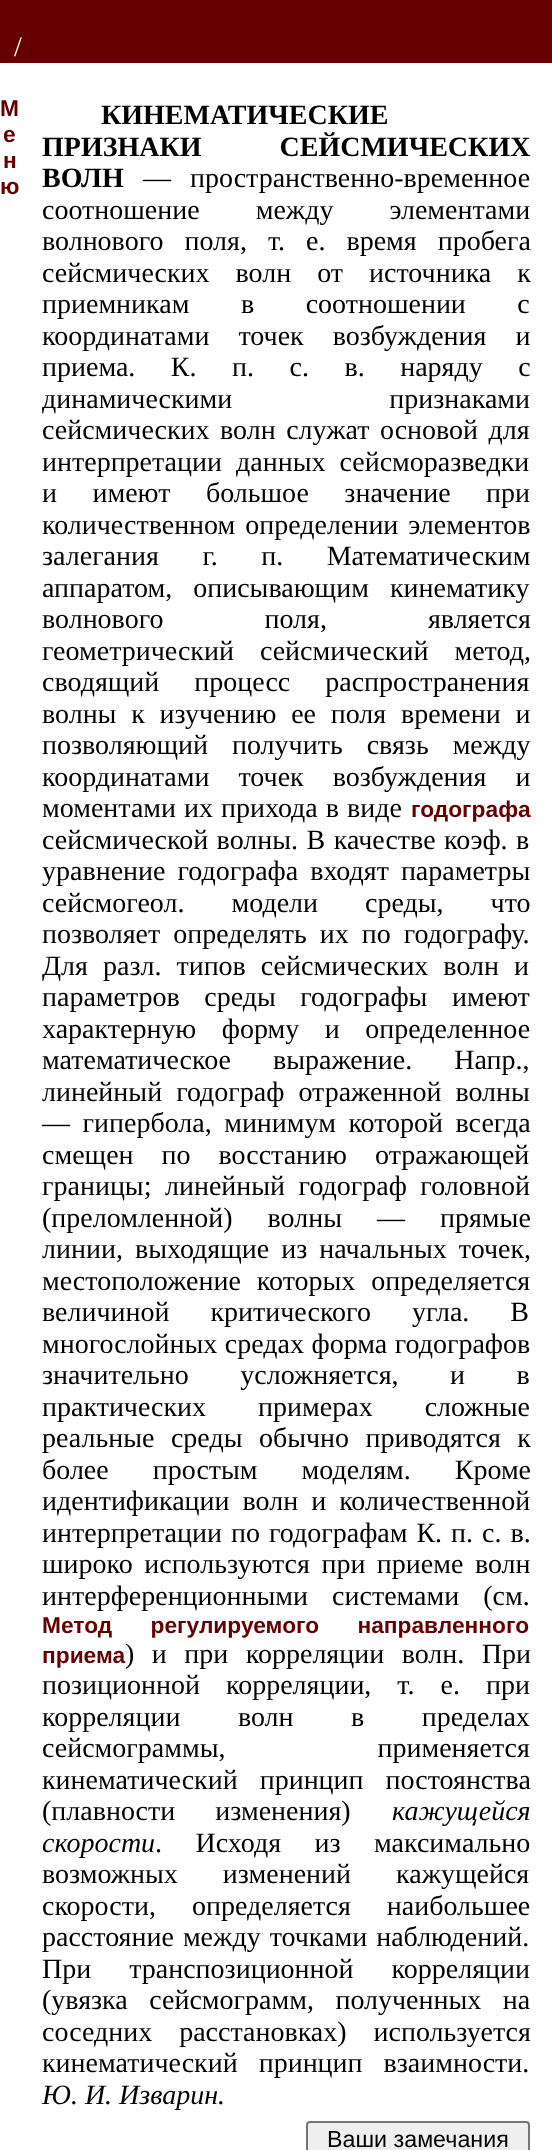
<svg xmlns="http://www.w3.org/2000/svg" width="552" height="2150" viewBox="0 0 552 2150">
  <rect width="100%" height="100%" fill="#fff"/>
  <path d="M0 0h552v63H0z" fill="#600"/>
  <rect x="307" y="2122" width="222" height="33" rx="3" fill="#efefef" stroke="#767676" stroke-width="2"/>
  <text x="14" y="56" font-family="Liberation Serif" font-size="28" fill="#fff">/</text>
  <g font-family="Liberation Sans" font-size="22.75" font-weight="bold" fill="#600">
    <text x="0" y="116">М</text>
    <text x="3" y="142">е</text>
    <text x="3" y="168">н</text>
    <text x="0" y="194">ю</text>
  </g>
  <g font-family="Liberation Serif" font-size="28" font-weight="bold" fill="#000">
    <text x="101" y="124">КИНЕМАТИЧЕСКИЕ</text>
    <text x="42" y="156" word-spacing="71">ПРИЗНАКИ СЕЙСМИЧЕСКИХ</text>
    <text x="42" y="187">ВОЛН</text>
  </g>
  <g font-family="Liberation Serif" font-size="28" fill="#000">
    <text x="143" y="187" word-spacing="12">— пространственно-временное</text>
    <text x="42" y="219" word-spacing="49">соотношение между элементами</text>
    <text x="42" y="250" word-spacing="14">волнового поля, т. е. время пробега</text>
    <text x="42" y="282" word-spacing="19">сейсмических волн от источника к</text>
    <text x="42" y="313" word-spacing="44.5">приемникам в соотношении с</text>
    <text x="42" y="345" word-spacing="22">координатами точек возбуждения и</text>
    <text x="42" y="376" word-spacing="28.5">приема. К. п. с. в. наряду с</text>
    <text x="42" y="408" word-spacing="150">динамическими признаками</text>
    <text x="42" y="439" word-spacing="3.5">сейсмических волн служат основой для</text>
    <text x="42" y="471" word-spacing="7">интерпретации данных сейсморазведки</text>
    <text x="42" y="502" word-spacing="28.5">и имеют большое значение при</text>
    <text x="42" y="534" word-spacing="3">количественном определении элементов</text>
    <text x="42" y="565" word-spacing="36.5">залегания г. п. Математическим</text>
    <text x="42" y="597" word-spacing="14">аппаратом, описывающим кинематику</text>
    <text x="42" y="628" word-spacing="94">волнового поля, является</text>
    <text x="42" y="660" word-spacing="19">геометрический сейсмический метод,</text>
    <text x="42" y="691" word-spacing="28">сводящий процесс распространения</text>
    <text x="42" y="723" word-spacing="7.75">волны к изучению ее поля времени и</text>
    <text x="42" y="754" word-spacing="17">позволяющий получить связь между</text>
    <text x="42" y="786" word-spacing="22">координатами точек возбуждения и</text>
    <text x="42" y="817" word-spacing="1">моментами их прихода в виде</text>
  </g>
  <text x="411" y="817" font-family="Liberation Sans" font-size="22.75" font-weight="bold" fill="#600">годографа</text>
  <g font-family="Liberation Serif" font-size="28" fill="#000">
    <text x="42" y="849" word-spacing="1.5">сейсмической волны. В качестве коэф. в</text>
    <text x="42" y="880" word-spacing="5">уравнение годографа входят параметры</text>
    <text x="42" y="912" word-spacing="40">сейсмогеол. модели среды, что</text>
    <text x="42" y="943" word-spacing="6">позволяет определять их по годографу.</text>
    <text x="42" y="975" word-spacing="8">Для разл. типов сейсмических волн и</text>
    <text x="42" y="1006" word-spacing="17.5">параметров среды годографы имеют</text>
    <text x="42" y="1038" word-spacing="18.5">характерную форму и определенное</text>
    <text x="42" y="1069" word-spacing="35">математическое выражение. Напр.,</text>
    <text x="42" y="1101" word-spacing="7">линейный годограф отраженной волны</text>
    <text x="42" y="1132" word-spacing="5.5">— гипербола, минимум которой всегда</text>
    <text x="42" y="1164" word-spacing="21">смещен по восстанию отражающей</text>
    <text x="42" y="1195" word-spacing="6.5">границы; линейный годограф головной</text>
    <text x="42" y="1227" word-spacing="28">(преломленной) волны — прямые</text>
    <text x="42" y="1258" word-spacing="5">линии, выходящие из начальных точек,</text>
    <text x="42" y="1290" word-spacing="9">местоположение которых определяется</text>
    <text x="42" y="1321" word-spacing="34">величиной критического угла. В</text>
    <text x="42" y="1353" word-spacing="0.5">многослойных средах форма годографов</text>
    <text x="42" y="1384" word-spacing="44.5">значительно усложняется, и в</text>
    <text x="42" y="1416" word-spacing="45">практических примерах сложные</text>
    <text x="42" y="1447" word-spacing="9.5">реальные среды обычно приводятся к</text>
    <text x="42" y="1479" word-spacing="37">более простым моделям. Кроме</text>
    <text x="42" y="1510" word-spacing="6">идентификации волн и количественной</text>
    <text x="42" y="1542" word-spacing="2">интерпретации по годографам К. п. с. в.</text>
    <text x="42" y="1573" word-spacing="4.5">широко используются при приеме волн</text>
    <text x="42" y="1605" word-spacing="17">интерференционными системами (см.</text>
  </g>
  <g font-family="Liberation Sans" font-size="22.75" font-weight="bold" fill="#600">
    <text x="42" y="1633" word-spacing="32">Метод регулируемого направленного</text>
    <text x="42" y="1663">приема</text>
  </g>
  <g font-family="Liberation Serif" font-size="28" fill="#000">
    <text x="125" y="1663" word-spacing="10.5">) и при корреляции волн. При</text>
    <text x="42" y="1694" word-spacing="19">позиционной корреляции, т. е. при</text>
    <text x="42" y="1726" word-spacing="50.5">корреляции волн в пределах</text>
    <text x="42" y="1757" word-spacing="145">сейсмограммы, применяется</text>
    <text x="42" y="1789" word-spacing="15">кинематический принцип постоянства</text>
    <text x="42" y="1820" word-spacing="33">(плавности изменения)</text>
  </g>
  <g font-family="Liberation Serif" font-size="28" font-style="italic" fill="#000">
    <text x="392" y="1820">кажущейся</text>
    <text x="42" y="1852">скорости</text>
  </g>
  <g font-family="Liberation Serif" font-size="28" fill="#000">
    <text x="155" y="1852" word-spacing="26.5">. Исходя из максимально</text>
    <text x="42" y="1883" word-spacing="38">возможных изменений кажущейся</text>
    <text x="42" y="1915" word-spacing="29">скорости, определяется наибольшее</text>
    <text x="42" y="1946" word-spacing="2">расстояние между точками наблюдений.</text>
    <text x="42" y="1978" word-spacing="31">При транспозиционной корреляции</text>
    <text x="42" y="2009" word-spacing="14.5">(увязка сейсмограмм, полученных на</text>
    <text x="42" y="2041" word-spacing="20">соседних расстановках) используется</text>
    <text x="42" y="2072" word-spacing="14">кинематический принцип взаимности.</text>
  </g>
  <text x="42" y="2104" font-family="Liberation Serif" font-size="28" font-style="italic" fill="#000">Ю. И. Изварин.</text>
  <text x="327" y="2147" font-family="Liberation Sans" font-size="23.25" fill="#000">Ваши замечания</text>
</svg>
